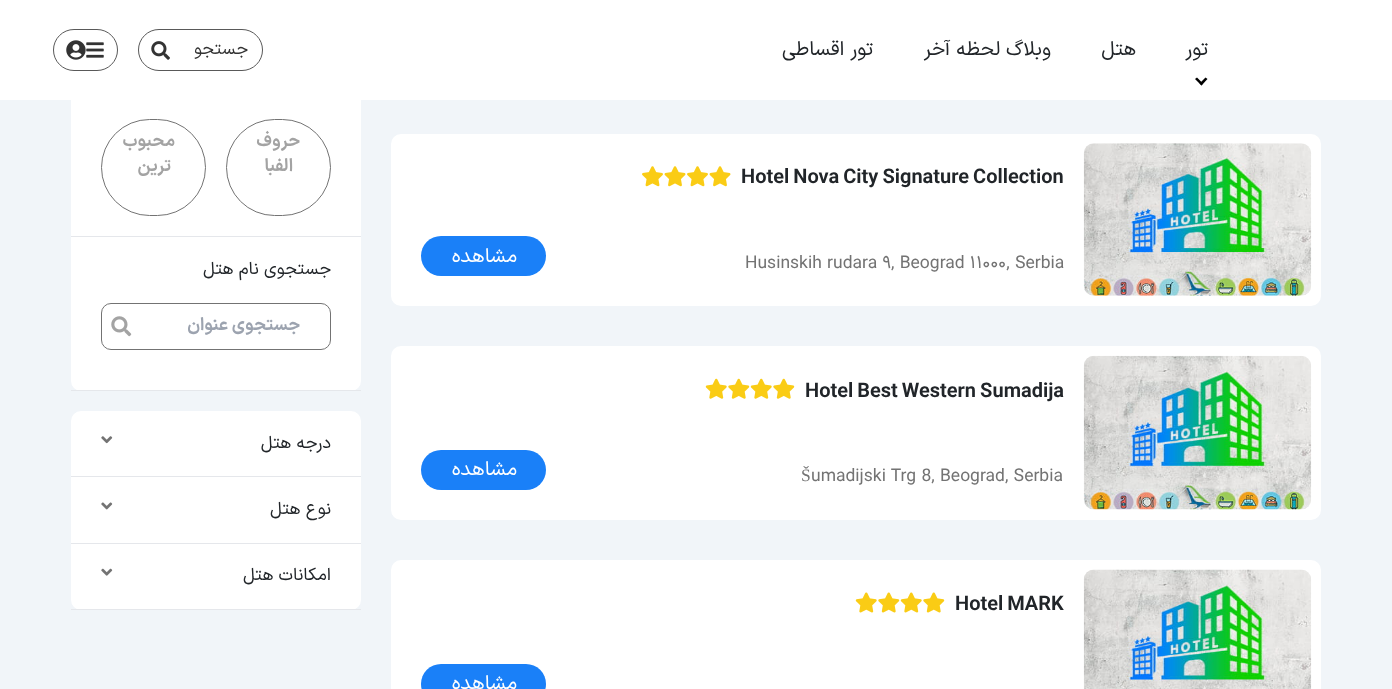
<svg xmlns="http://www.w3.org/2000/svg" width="1392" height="689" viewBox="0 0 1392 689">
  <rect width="100%" height="100%" fill="#f1f5f9"/>
  <rect x="71" y="-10" width="290" height="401" rx="10" fill="#fff"/>
  <path d="M0 0h1392v100H0z" fill="#fff"/>
  <rect x="53.5" y="29.5" width="64" height="41" rx="20.5" fill="none" stroke="#595959"/>
  <image x="66" y="40" width="20" height="20" href="img/1.png"/>
  <image x="86" y="42" width="18" height="16" href="img/2.png"/>
  <rect x="138.5" y="29.5" width="124" height="41" rx="20.5" fill="none" stroke="#595959"/>
  <image x="151" y="41" width="19" height="19" href="img/3.png"/>
  <path d="M1205.5 77.5L1207.5 79L1201.5 85.5L1199.5 83.5Z" fill="#000"/>
  <path d="M1197 77.5L1203 83.5L1201.5 85.5L1195 79Z" fill="#000"/>
  <path d="M71 236h290v1H71z" fill="#e5e7eb"/>
  <rect x="101.5" y="119.5" width="104" height="96" rx="48" fill="none" stroke="#737373"/>
  <rect x="226.5" y="119.5" width="104" height="96" rx="48" fill="none" stroke="#737373"/>
  <path d="M71 390h290v1H71z" fill="#e5e7eb"/>
  <rect x="101.5" y="303.5" width="229" height="46" rx="9.5" fill="none" stroke="#737373"/>
  <image x="111" y="316" width="21" height="21" href="img/4.png"/>
  <rect x="71" y="411" width="290" height="199" rx="10" fill="#fff"/>
  <path d="M71 476h290v1H71z" fill="#e5e7eb"/>
  <image x="101" y="436" width="12" height="8" href="img/5.png"/>
  <path d="M71 543h290v1H71z" fill="#e5e7eb"/>
  <image x="101" y="502" width="12" height="8" href="img/6.png"/>
  <path d="M71 609h290v1H71z" fill="#e5e7eb"/>
  <image x="101" y="568" width="12" height="8" href="img/7.png"/>
  <rect x="391" y="134" width="930" height="172" rx="10" fill="#fff"/>
  <image x="642" y="166" width="21" height="21" href="img/8.png"/>
  <image x="664" y="166" width="22" height="21" href="img/9.png"/>
  <image x="687" y="166" width="21" height="21" href="img/8.png"/>
  <image x="709" y="166" width="22" height="21" href="img/9.png"/>
  <rect x="421" y="236" width="125" height="40" rx="20" fill="#1a80f8"/>
  <image x="1083" y="143" width="229" height="153" href="img/10.png"/>
  <rect x="391" y="346" width="930" height="174" rx="10" fill="#fff"/>
  <image x="705" y="378" width="22" height="21" href="img/11.png"/>
  <image x="728" y="378" width="22" height="21" href="img/12.png"/>
  <image x="750" y="378" width="22" height="21" href="img/11.png"/>
  <image x="773" y="378" width="22" height="21" href="img/12.png"/>
  <rect x="421" y="450" width="125" height="40" rx="20" fill="#1a80f8"/>
  <image x="1083" y="355" width="229" height="155" href="img/13.png"/>
  <rect x="391" y="560" width="930" height="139" rx="10" fill="#fff"/>
  <image x="855" y="592" width="22" height="21" href="img/14.png"/>
  <image x="878" y="592" width="22" height="21" href="img/15.png"/>
  <image x="900" y="592" width="22" height="21" href="img/14.png"/>
  <image x="923" y="592" width="22" height="21" href="img/15.png"/>
  <rect x="421" y="664" width="125" height="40" rx="20" fill="#1a80f8"/>
  <image x="1083" y="569" width="229" height="120" href="img/16.png"/>
  <text x="248" y="54" font-family="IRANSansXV" font-size="17.5" direction="rtl" fill="#333">جستجو</text>
  <g font-family="IRANSansXV" font-size="20" direction="rtl" fill="#212529">
    <text x="873" y="55">تور اقساطی</text>
    <text x="1051" y="55">وبلاگ لحظه آخر</text>
    <text x="1136" y="55">هتل</text>
    <text x="1208" y="55">تور</text>
  </g>
  <g font-family="IRANSansXV" font-size="17.5" font-weight="bold" direction="rtl" fill="#a3a3a3">
    <text x="175" y="146">محبوب</text>
    <text x="171" y="171">ترین</text>
    <text x="300" y="146">حروف</text>
    <text x="293" y="171">الفبا</text>
  </g>
  <text x="331" y="274" font-family="IRANSansXV" font-size="17.5" direction="rtl" fill="#212529">جستجوی نام هتل</text>
  <text x="300" y="330" font-family="IRANSansXV" font-size="17.5" font-weight="bold" direction="rtl" fill="#9ca3af">جستجوی عنوان</text>
  <g font-family="IRANSansXV" font-size="17.5" direction="rtl" fill="#212529">
    <text x="331" y="448">درجه هتل</text>
    <text x="331" y="514">نوع هتل</text>
    <text x="331" y="580">امکانات هتل</text>
  </g>
  <text x="741" y="183" font-family="IRANSansXV" font-size="20" font-weight="bold" fill="#212529">Hotel Nova City Signature Collection</text>
  <text x="517" y="262" font-family="IRANSansXV" font-size="20" direction="rtl" fill="#fff">مشاهده</text>
  <text x="745" y="268" font-family="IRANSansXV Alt" font-size="17.5" fill="#737373">Husinskih rudara 9, Beograd 11000, Serbia</text>
  <text x="805" y="397" font-family="IRANSansXV" font-size="20" font-weight="bold" fill="#212529">Hotel Best Western Sumadija</text>
  <text x="517" y="475" font-family="IRANSansXV" font-size="20" direction="rtl" fill="#fff">مشاهده</text>
  <text x="801" y="481" font-family="Liberation Serif" font-size="17.5" fill="#737373">Š</text>
  <text x="811" y="481" font-family="IRANSansXV" font-size="17.5" fill="#737373">umadijski Trg 8, Beograd, Serbia</text>
  <text x="955" y="610" font-family="IRANSansXV" font-size="20" font-weight="bold" fill="#212529">Hotel MARK</text>
  <text x="517" y="689" font-family="IRANSansXV" font-size="20" direction="rtl" fill="#fff">مشاهده</text>
</svg>
